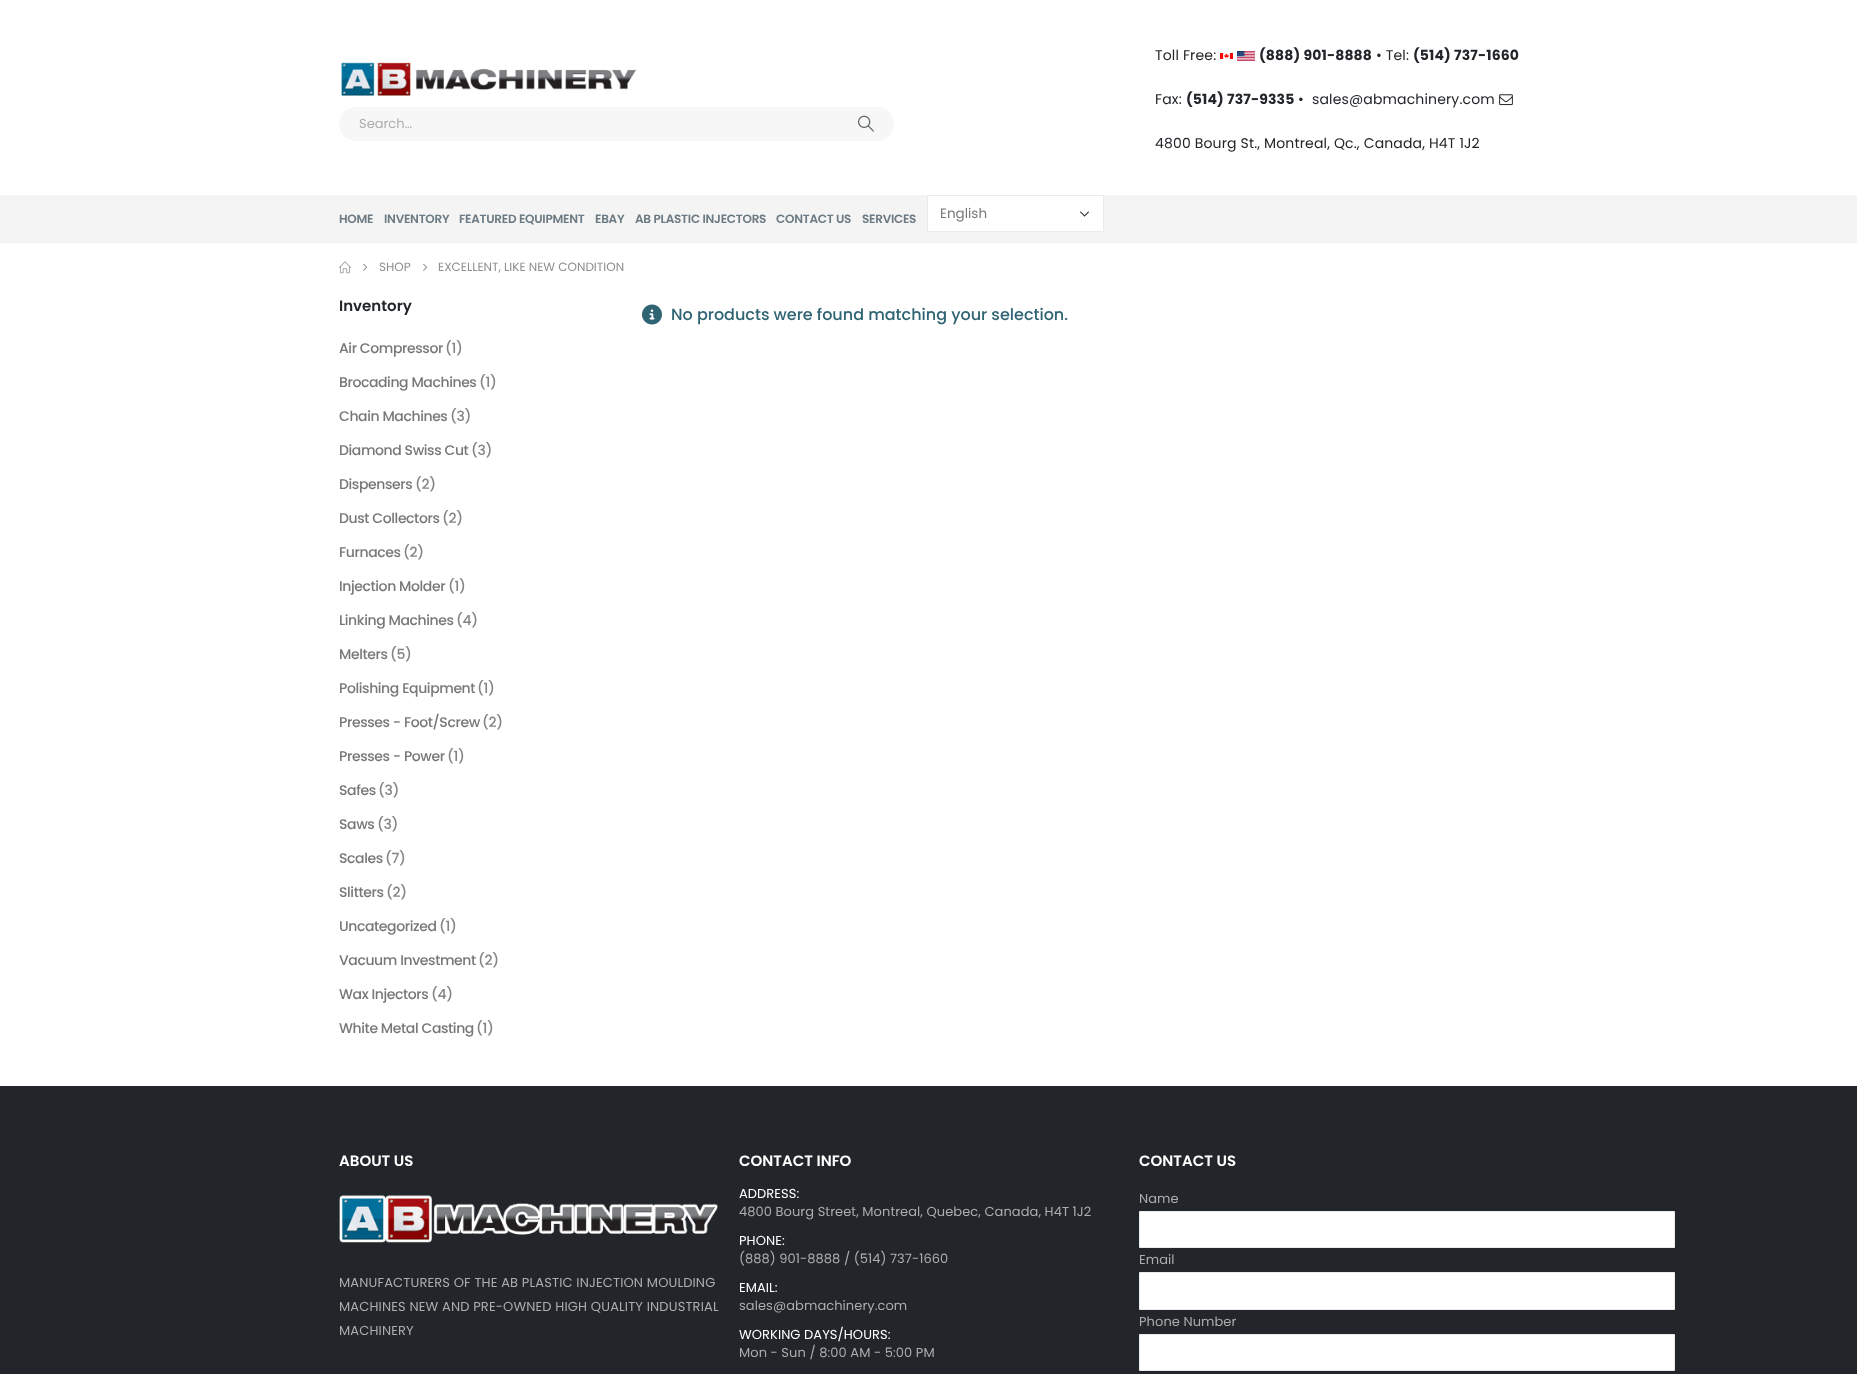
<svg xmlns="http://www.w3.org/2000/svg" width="1857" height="1374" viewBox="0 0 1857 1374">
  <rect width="100%" height="100%" fill="#fff"/>
  <image x="341" y="62" width="295" height="34" href="img/1.png"/>
  <rect x="339" y="107" width="555" height="34" rx="17" fill="#f7f7f7"/>
  <image x="858" y="115" width="16" height="17" href="img/2.png"/>
  <image x="1220" y="53" width="13" height="6" href="img/3.png"/>
  <image x="1237" y="51" width="18" height="10" href="img/4.png"/>
  <image x="1499" y="94" width="14" height="12" href="img/5.png"/>
  <path d="M0 195h1857v48H0z" fill="#f4f4f4"/>
  <path d="M928 196h175v35H928z" fill="#fff"/>
  <image x="1080" y="211" width="9" height="6" href="img/6.png"/>
  <path d="M927.5 195.5h176v36H927.5z" fill="none" stroke="#ebebeb"/>
  <image x="339" y="261" width="12" height="13" href="img/7.png"/>
  <image x="363" y="263" width="5" height="8" href="img/8.png"/>
  <image x="423" y="263" width="5" height="8" href="img/8.png"/>
  <image x="642" y="304" width="20" height="21" href="img/9.png"/>
  <path d="M0 1086h1857v288H0z" fill="#222529"/>
  <image x="339" y="1195" width="379" height="48" href="img/10.png"/>
  <path d="M1139.5 1211.5h535v36H1139.5z" fill="#fff" stroke="#ebebeb"/>
  <path d="M1139.5 1272.5h535v37H1139.5z" fill="#fff" stroke="#ebebeb"/>
  <path d="M1139.5 1334.5h535v36H1139.5z" fill="#fff" stroke="#ebebeb"/>
  <text x="359" y="128" font-family="Poppins" font-size="13" fill="#adadad">Search…</text>
  <text x="1155" y="60" font-family="Poppins" font-size="14" letter-spacing="0.15" fill="#222529">Toll Free:</text>
  <text x="1259" y="60" font-family="Poppins" font-size="14" font-weight="bold" letter-spacing="0.15" fill="#222529">(888) 901-8888</text>
  <text x="1376" y="60" font-family="Poppins" font-size="14" letter-spacing="0.15" fill="#222529">• Tel:</text>
  <text x="1413" y="60" font-family="Poppins" font-size="14" font-weight="bold" letter-spacing="0.15" fill="#222529">(514) 737-1660</text>
  <text x="1155" y="104" font-family="Poppins" font-size="14" letter-spacing="0.15" fill="#222529">Fax:</text>
  <text x="1186" y="104" font-family="Poppins" font-size="14" font-weight="bold" letter-spacing="0.15" fill="#222529">(514) 737-9335</text>
  <g font-family="Poppins" font-size="14" letter-spacing="0.15" fill="#222529">
    <text x="1298" y="104">•</text>
    <text x="1312" y="104">sales@abmachinery.com</text>
    <text x="1155" y="148">4800 Bourg St., Montreal, Qc., Canada, H4T 1J2</text>
  </g>
  <g font-family="Poppins" font-size="12" font-weight="600" letter-spacing="-0.25" fill="#6b7a83">
    <text x="339" y="223">HOME</text>
    <text x="384" y="223">INVENTORY</text>
    <text x="459" y="223">FEATURED EQUIPMENT</text>
    <text x="595" y="223">EBAY</text>
    <text x="635" y="223">AB PLASTIC INJECTORS</text>
    <text x="776" y="223">CONTACT US</text>
    <text x="862" y="223">SERVICES</text>
  </g>
  <text x="940" y="218" font-family="Poppins" font-size="13.5" fill="#777">English</text>
  <g font-family="Poppins" font-size="12" fill="#8e8e8e">
    <text x="379" y="271">SHOP</text>
    <text x="438" y="271">EXCELLENT, LIKE NEW CONDITION</text>
  </g>
  <text x="339" y="311" font-family="Poppins" font-size="15" font-weight="600" fill="#222529">Inventory</text>
  <text x="339" y="353" font-family="Poppins" font-size="14" font-weight="500" letter-spacing="-0.4" fill="#777">Air Compressor</text>
  <text x="445" y="353" font-family="Poppins" font-size="14" font-weight="500" letter-spacing="-0.4" fill="#848484">(1)</text>
  <text x="339" y="387" font-family="Poppins" font-size="14" font-weight="500" letter-spacing="-0.4" fill="#777">Brocading Machines</text>
  <text x="479" y="387" font-family="Poppins" font-size="14" font-weight="500" letter-spacing="-0.4" fill="#848484">(1)</text>
  <text x="339" y="421" font-family="Poppins" font-size="14" font-weight="500" letter-spacing="-0.4" fill="#777">Chain Machines</text>
  <text x="450" y="421" font-family="Poppins" font-size="14" font-weight="500" letter-spacing="-0.4" fill="#848484">(3)</text>
  <text x="339" y="455" font-family="Poppins" font-size="14" font-weight="500" letter-spacing="-0.4" fill="#777">Diamond Swiss Cut</text>
  <text x="471" y="455" font-family="Poppins" font-size="14" font-weight="500" letter-spacing="-0.4" fill="#848484">(3)</text>
  <text x="339" y="489" font-family="Poppins" font-size="14" font-weight="500" letter-spacing="-0.4" fill="#777">Dispensers</text>
  <text x="415" y="489" font-family="Poppins" font-size="14" font-weight="500" letter-spacing="-0.4" fill="#848484">(2)</text>
  <text x="339" y="523" font-family="Poppins" font-size="14" font-weight="500" letter-spacing="-0.4" fill="#777">Dust Collectors</text>
  <text x="442" y="523" font-family="Poppins" font-size="14" font-weight="500" letter-spacing="-0.4" fill="#848484">(2)</text>
  <text x="339" y="557" font-family="Poppins" font-size="14" font-weight="500" letter-spacing="-0.4" fill="#777">Furnaces</text>
  <text x="403" y="557" font-family="Poppins" font-size="14" font-weight="500" letter-spacing="-0.4" fill="#848484">(2)</text>
  <text x="339" y="591" font-family="Poppins" font-size="14" font-weight="500" letter-spacing="-0.4" fill="#777">Injection Molder</text>
  <text x="448" y="591" font-family="Poppins" font-size="14" font-weight="500" letter-spacing="-0.4" fill="#848484">(1)</text>
  <text x="339" y="625" font-family="Poppins" font-size="14" font-weight="500" letter-spacing="-0.4" fill="#777">Linking Machines</text>
  <text x="456" y="625" font-family="Poppins" font-size="14" font-weight="500" letter-spacing="-0.4" fill="#848484">(4)</text>
  <text x="339" y="659" font-family="Poppins" font-size="14" font-weight="500" letter-spacing="-0.4" fill="#777">Melters</text>
  <text x="390" y="659" font-family="Poppins" font-size="14" font-weight="500" letter-spacing="-0.4" fill="#848484">(5)</text>
  <text x="339" y="693" font-family="Poppins" font-size="14" font-weight="500" letter-spacing="-0.4" fill="#777">Polishing Equipment</text>
  <text x="477" y="693" font-family="Poppins" font-size="14" font-weight="500" letter-spacing="-0.4" fill="#848484">(1)</text>
  <text x="339" y="727" font-family="Poppins" font-size="14" font-weight="500" letter-spacing="-0.4" fill="#777">Presses - Foot/Screw</text>
  <text x="482" y="727" font-family="Poppins" font-size="14" font-weight="500" letter-spacing="-0.4" fill="#848484">(2)</text>
  <text x="339" y="761" font-family="Poppins" font-size="14" font-weight="500" letter-spacing="-0.4" fill="#777">Presses - Power</text>
  <text x="447" y="761" font-family="Poppins" font-size="14" font-weight="500" letter-spacing="-0.4" fill="#848484">(1)</text>
  <text x="339" y="795" font-family="Poppins" font-size="14" font-weight="500" letter-spacing="-0.4" fill="#777">Safes</text>
  <text x="378" y="795" font-family="Poppins" font-size="14" font-weight="500" letter-spacing="-0.4" fill="#848484">(3)</text>
  <text x="339" y="829" font-family="Poppins" font-size="14" font-weight="500" letter-spacing="-0.4" fill="#777">Saws</text>
  <text x="377" y="829" font-family="Poppins" font-size="14" font-weight="500" letter-spacing="-0.4" fill="#848484">(3)</text>
  <text x="339" y="863" font-family="Poppins" font-size="14" font-weight="500" letter-spacing="-0.4" fill="#777">Scales</text>
  <text x="385" y="863" font-family="Poppins" font-size="14" font-weight="500" letter-spacing="-0.4" fill="#848484">(7)</text>
  <text x="339" y="897" font-family="Poppins" font-size="14" font-weight="500" letter-spacing="-0.4" fill="#777">Slitters</text>
  <text x="386" y="897" font-family="Poppins" font-size="14" font-weight="500" letter-spacing="-0.4" fill="#848484">(2)</text>
  <text x="339" y="931" font-family="Poppins" font-size="14" font-weight="500" letter-spacing="-0.4" fill="#777">Uncategorized</text>
  <text x="439" y="931" font-family="Poppins" font-size="14" font-weight="500" letter-spacing="-0.4" fill="#848484">(1)</text>
  <text x="339" y="965" font-family="Poppins" font-size="14" font-weight="500" letter-spacing="-0.4" fill="#777">Vacuum Investment</text>
  <text x="478" y="965" font-family="Poppins" font-size="14" font-weight="500" letter-spacing="-0.4" fill="#848484">(2)</text>
  <text x="339" y="999" font-family="Poppins" font-size="14" font-weight="500" letter-spacing="-0.4" fill="#777">Wax Injectors</text>
  <text x="431" y="999" font-family="Poppins" font-size="14" font-weight="500" letter-spacing="-0.4" fill="#848484">(4)</text>
  <text x="339" y="1033" font-family="Poppins" font-size="14" font-weight="500" letter-spacing="-0.4" fill="#777">White Metal Casting</text>
  <text x="476" y="1033" font-family="Poppins" font-size="14" font-weight="500" letter-spacing="-0.4" fill="#848484">(1)</text>
  <text x="671" y="320" font-family="Poppins" font-size="16" font-weight="500" fill="#2f6473">No products were found matching your selection.</text>
  <text x="339" y="1166" font-family="Poppins" font-size="15" font-weight="600" fill="#fff">ABOUT US</text>
  <g font-family="Poppins" font-size="13" letter-spacing="0.15" fill="#adadad">
    <text x="339" y="1287">MANUFACTURERS OF THE AB PLASTIC INJECTION MOULDING</text>
    <text x="339" y="1311">MACHINES NEW AND PRE-OWNED HIGH QUALITY INDUSTRIAL</text>
    <text x="339" y="1335">MACHINERY</text>
  </g>
  <text x="739" y="1166" font-family="Poppins" font-size="15" font-weight="600" fill="#fff">CONTACT INFO</text>
  <text x="739" y="1198" font-family="Poppins" font-size="13" letter-spacing="0.07" fill="#fff">ADDRESS:</text>
  <text x="739" y="1216" font-family="Poppins" font-size="13" letter-spacing="0.07" fill="#adadad">4800 Bourg Street, Montreal, Quebec, Canada, H4T 1J2</text>
  <text x="739" y="1245" font-family="Poppins" font-size="13" letter-spacing="0.07" fill="#fff">PHONE:</text>
  <text x="739" y="1263" font-family="Poppins" font-size="13" letter-spacing="0.07" fill="#adadad">(888) 901-8888 / (514) 737-1660</text>
  <text x="739" y="1292" font-family="Poppins" font-size="13" letter-spacing="0.07" fill="#fff">EMAIL:</text>
  <text x="739" y="1310" font-family="Poppins" font-size="13" letter-spacing="0.07" fill="#adadad">sales@abmachinery.com</text>
  <text x="739" y="1339" font-family="Poppins" font-size="13" letter-spacing="0.07" fill="#fff">WORKING DAYS/HOURS:</text>
  <text x="739" y="1357" font-family="Poppins" font-size="13" letter-spacing="0.07" fill="#adadad">Mon - Sun / 8:00 AM - 5:00 PM</text>
  <text x="1139" y="1166" font-family="Poppins" font-size="15" font-weight="600" fill="#fff">CONTACT US</text>
  <g font-family="Poppins" font-size="13" letter-spacing="0.07" fill="#adadad">
    <text x="1139" y="1203">Name</text>
    <text x="1139" y="1264">Email</text>
    <text x="1139" y="1326">Phone Number</text>
  </g>
</svg>
